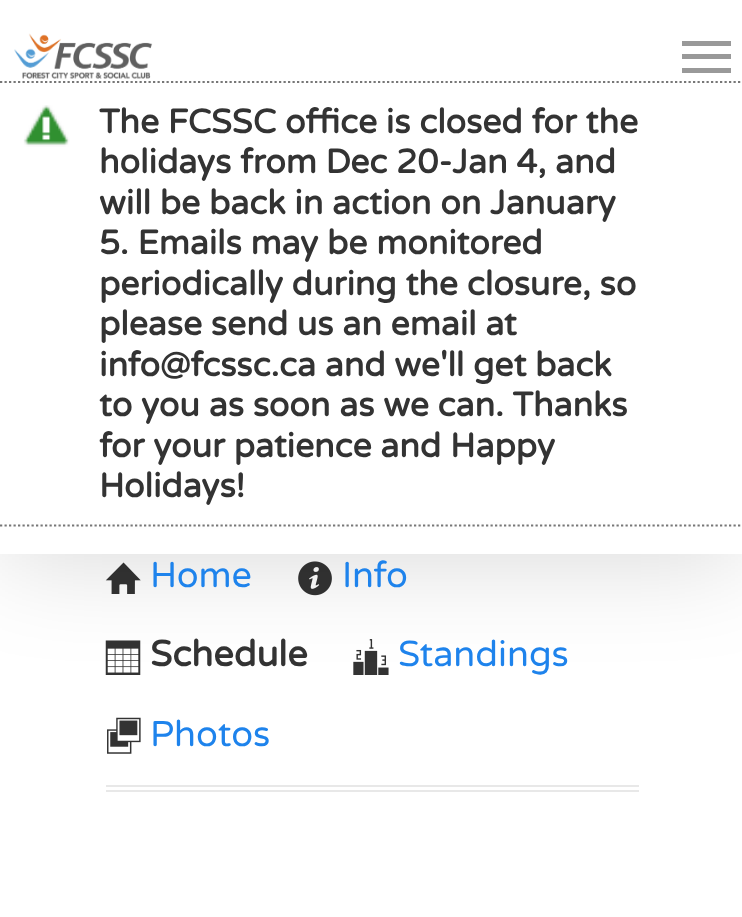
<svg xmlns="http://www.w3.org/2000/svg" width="742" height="917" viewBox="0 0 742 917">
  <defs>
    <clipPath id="clip1"><path d="M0 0H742V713H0ZM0 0H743V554H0Z" clip-rule="evenodd"/></clipPath>
  </defs>
  <rect width="100%" height="100%" fill="#fff"/>
  <path d="M106 522h533v2H106z" fill="#e8e8e8"/>
  <path d="M106 527h533v2H106z" fill="#e8e8e8"/>
  <image x="105" y="562" width="36" height="32" href="img/3.png"/>
  <image x="298" y="561" width="34" height="35" href="img/4.png"/>
  <image x="105" y="640" width="36" height="35" href="img/5.png"/>
  <image x="353" y="639" width="36" height="36" href="img/6.png"/>
  <g clip-path="url(#clip1)">
    <path d="M0 7h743v553H0z" fill="#00000026" filter="blur(50.5px)"/>
  </g>
  <path d="M0 522h742v32H0z" fill="#fffffff5"/>
  <image x="14" y="33" width="139" height="46" href="img/1.png"/>
  <path d="M682 41h49v5H682z" fill="#999"/>
  <path d="M682 68h49v5H682z" fill="#999"/>
  <path d="M682 54h49v5H682z" fill="#999"/>
  <image x="23" y="105" width="47" height="42" href="img/2.png"/>
  <path d="M0 82H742.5" fill="none" stroke="#777" stroke-width="2.2" stroke-dasharray="2.25 2.25"/>
  <path d="M0 525.5H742.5" fill="none" stroke="#777" stroke-width="2.2" stroke-dasharray="2.25 2.25"/>
  <path d="M106 785h533v2H106z" fill="#e8e8e8"/>
  <path d="M106 790h533v2H106z" fill="#e8e8e8"/>
  <image x="107" y="717" width="34" height="37" href="img/7.png"/>
  <g font-family="Varela Round" font-size="33.75" font-weight="bold" fill="#333">
    <text x="99" y="133">The FCSSC office is closed for the</text>
    <text x="99" y="173">holidays from Dec 20-Jan 4, and</text>
    <text x="99" y="214">will be back in action on January</text>
    <text x="99" y="254">5. Emails may be monitored</text>
    <text x="99" y="295">periodically during the closure, so</text>
    <text x="99" y="335">please send us an email at</text>
    <text x="99" y="376">info@fcssc.ca and we'll get back</text>
    <text x="99" y="416">to you as soon as we can. Thanks</text>
    <text x="99" y="457">for your patience and Happy</text>
    <text x="99" y="497">Holidays!</text>
  </g>
  <g font-family="Varela Round" font-size="36" fill="#1e83ec">
    <text x="150" y="587">Home</text>
    <text x="342" y="587">Info</text>
  </g>
  <text x="150" y="666" font-family="Varela Round" font-size="36" font-weight="bold" fill="#333">Schedule</text>
  <g font-family="Varela Round" font-size="36" fill="#1e83ec">
    <text x="398" y="666">Standings</text>
    <text x="150" y="746">Photos</text>
  </g>
</svg>
